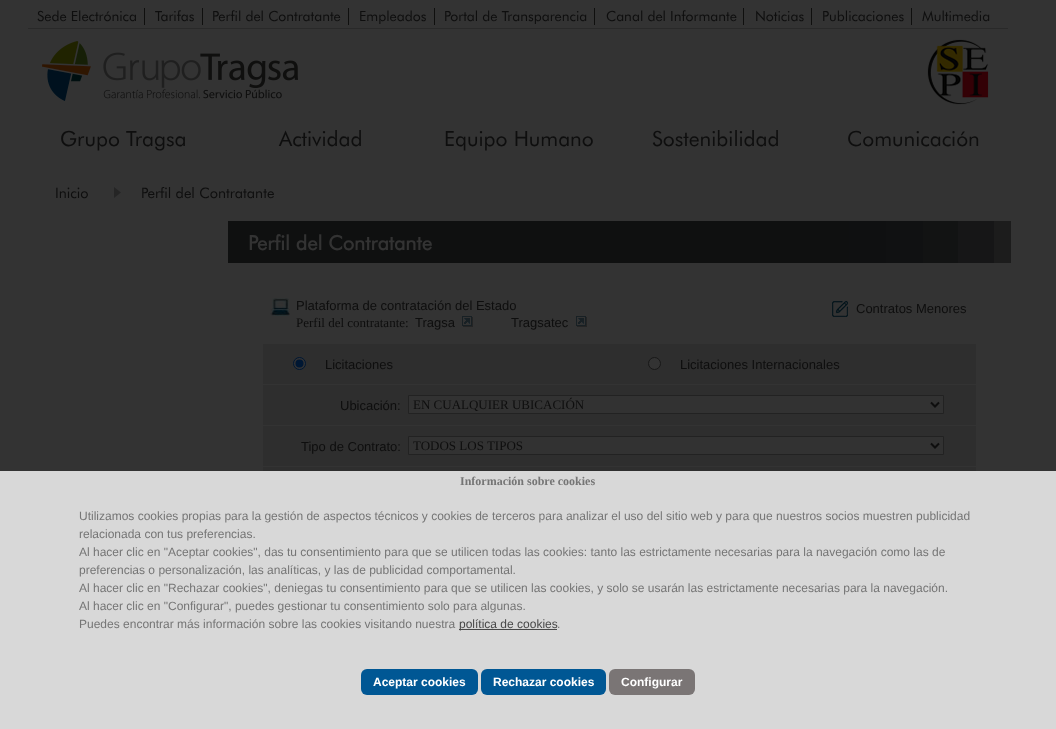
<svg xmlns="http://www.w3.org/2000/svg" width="1056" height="729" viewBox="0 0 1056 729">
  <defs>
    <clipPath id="clip1"><path d="M413 437h514v17H413z"/></clipPath>
  </defs>
  <rect width="100%" height="100%" fill="#333"/>
  <path d="M28 28h980v1H28z" fill="#292929"/>
  <path d="M144 8h1v17H144z" fill="#0f0f0e"/>
  <path d="M202 8h1v17H202z" fill="#0f0f0e"/>
  <path d="M348 8h1v17H348z" fill="#0f0f0e"/>
  <path d="M434 8h1v17H434z" fill="#0f0f0e"/>
  <path d="M594 8h1v17H594z" fill="#0f0f0e"/>
  <path d="M743 8h1v17H743z" fill="#0f0f0e"/>
  <path d="M811 8h1v17H811z" fill="#0f0f0e"/>
  <path d="M911 8h1v17H911z" fill="#0f0f0e"/>
  <image x="42" y="41" width="256" height="60" href="img/1.png"/>
  <image x="927" y="39" width="62" height="66" href="img/2.png"/>
  <image x="114" y="187" width="7" height="11" href="img/3.png"/>
  <image x="228" y="221" width="783" height="42" href="img/4.png"/>
  <image x="270" y="298" width="20" height="18" href="img/5.png"/>
  <image x="462" y="316" width="11" height="11" href="img/6.png"/>
  <image x="576" y="316" width="11" height="11" href="img/6.png"/>
  <image x="832" y="301" width="16" height="16" href="img/7.png"/>
  <path d="M263 344h713v40H263z" fill="#2e2e2e"/>
  <circle cx="299.5" cy="363.5" r="6" fill="#333" stroke="#001733"/>
  <circle cx="299.5" cy="363.5" r="4" fill="#001733"/>
  <circle cx="654.5" cy="363.5" r="6" fill="#333" stroke="#181818"/>
  <path d="M263 385h713v40H263z" fill="#2e2e2e"/>
  <path d="M408.5 395.5h535v18H408.5z" fill="#323232" stroke="#222"/>
  <path d="M931 402.5L935 406.5L939 402.5" fill="none" stroke="#0e0e0e" stroke-width="2"/>
  <path d="M263 426h713v40H263z" fill="#2e2e2e"/>
  <path d="M408.5 436.5h535v18H408.5z" fill="#323232" stroke="#222"/>
  <path d="M931 443.5L935 447.5L939 443.5" fill="none" stroke="#0e0e0e" stroke-width="2"/>
  <path d="M263 467h713v4H263z" fill="#2e2e2e"/>
  <path d="M0 471h1056v258H0z" fill="#d8d8d8"/>
  <path d="M459 629h98v1H459z" fill="#484848"/>
  <rect x="361" y="669" width="117" height="26" rx="6" fill="#005794"/>
  <rect x="481" y="669" width="125" height="26" rx="6" fill="#005794"/>
  <rect x="609" y="669" width="86" height="26" rx="6" fill="#7a7575"/>
  <g font-family="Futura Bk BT" font-size="14" fill="#0e0e0e">
    <text x="37" y="21">Sede Electrónica</text>
    <text x="155" y="21">Tarifas</text>
    <text x="212" y="21">Perfil del Contratante</text>
    <text x="359" y="21">Empleados</text>
    <text x="444" y="21">Portal de Transparencia</text>
    <text x="606" y="21">Canal del Informante</text>
    <text x="755" y="21">Noticias</text>
    <text x="822" y="21">Publicaciones</text>
    <text x="922" y="21">Multimedia</text>
  </g>
  <g font-family="Futura Bk BT" font-size="21" fill="#0e0e0e">
    <text x="60" y="146">Grupo Tragsa</text>
    <text x="279" y="146">Actividad</text>
    <text x="444" y="146">Equipo Humano</text>
    <text x="652" y="146">Sostenibilidad</text>
    <text x="847" y="146">Comunicación</text>
  </g>
  <g font-family="Futura Bk BT" font-size="14.5" fill="#0e0e0e">
    <text x="55" y="198">Inicio</text>
    <text x="141" y="198">Perfil del Contratante</text>
  </g>
  <text x="248" y="250" font-family="Futura Bk BT" font-size="20" font-weight="bold" fill="#333">Perfil del Contratante</text>
  <text x="296" y="310" font-family="Liberation Sans" font-size="13" fill="#0e0e0e">Plataforma de contratación del Estado</text>
  <text x="296" y="327" font-family="Liberation Serif" font-size="13" fill="#0e0e0e">Perfil del contratante:</text>
  <g font-family="Liberation Sans" font-size="13" fill="#0e0e0e">
    <text x="415" y="327">Tragsa</text>
    <text x="511" y="327">Tragsatec</text>
    <text x="856" y="313">Contratos Menores</text>
    <text x="325" y="369">Licitaciones</text>
    <text x="680" y="369">Licitaciones Internacionales</text>
    <text x="340" y="410">Ubicación:</text>
  </g>
  <text x="413" y="409" font-family="Liberation Serif" font-size="13" fill="#0e0e0e">EN CUALQUIER UBICACIÓN</text>
  <text x="301" y="451" font-family="Liberation Sans" font-size="13" fill="#0e0e0e">Tipo de Contrato:</text>
  <g clip-path="url(#clip1)">
    <text x="413" y="450" font-family="Liberation Serif" font-size="13" fill="#0e0e0e">TODOS LOS TIPOS</text>
  </g>
  <text x="460" y="485" font-family="Liberation Serif" font-size="12" font-weight="bold" fill="#757575">Información sobre cookies</text>
  <g font-family="Liberation Sans" font-size="12" fill="#757575">
    <text x="79" y="520">Utilizamos cookies propias para la gestión de aspectos técnicos y cookies de terceros para analizar el uso del sitio web y para que nuestros socios muestren publicidad</text>
    <text x="79" y="538">relacionada con tus preferencias.</text>
    <text x="79" y="556">Al hacer clic en "Aceptar cookies", das tu consentimiento para que se utilicen todas las cookies: tanto las estrictamente necesarias para la navegación como las de</text>
    <text x="79" y="574">preferencias o personalización, las analíticas, y las de publicidad comportamental.</text>
    <text x="79" y="592">Al hacer clic en "Rechazar cookies", deniegas tu consentimiento para que se utilicen las cookies, y solo se usarán las estrictamente necesarias para la navegación.</text>
    <text x="79" y="610">Al hacer clic en "Configurar", puedes gestionar tu consentimiento solo para algunas.</text>
    <text x="79" y="628">Puedes encontrar más información sobre las cookies visitando nuestra</text>
  </g>
  <text x="459" y="628" font-family="Liberation Sans" font-size="12" fill="#484848">política de cookies</text>
  <text x="557" y="628" font-family="Liberation Sans" font-size="12" fill="#757575">.</text>
  <g font-family="Liberation Sans" font-size="12" font-weight="bold" fill="#fff">
    <text x="373" y="686">Aceptar cookies</text>
    <text x="493" y="686">Rechazar cookies</text>
    <text x="621" y="686">Configurar</text>
  </g>
</svg>
